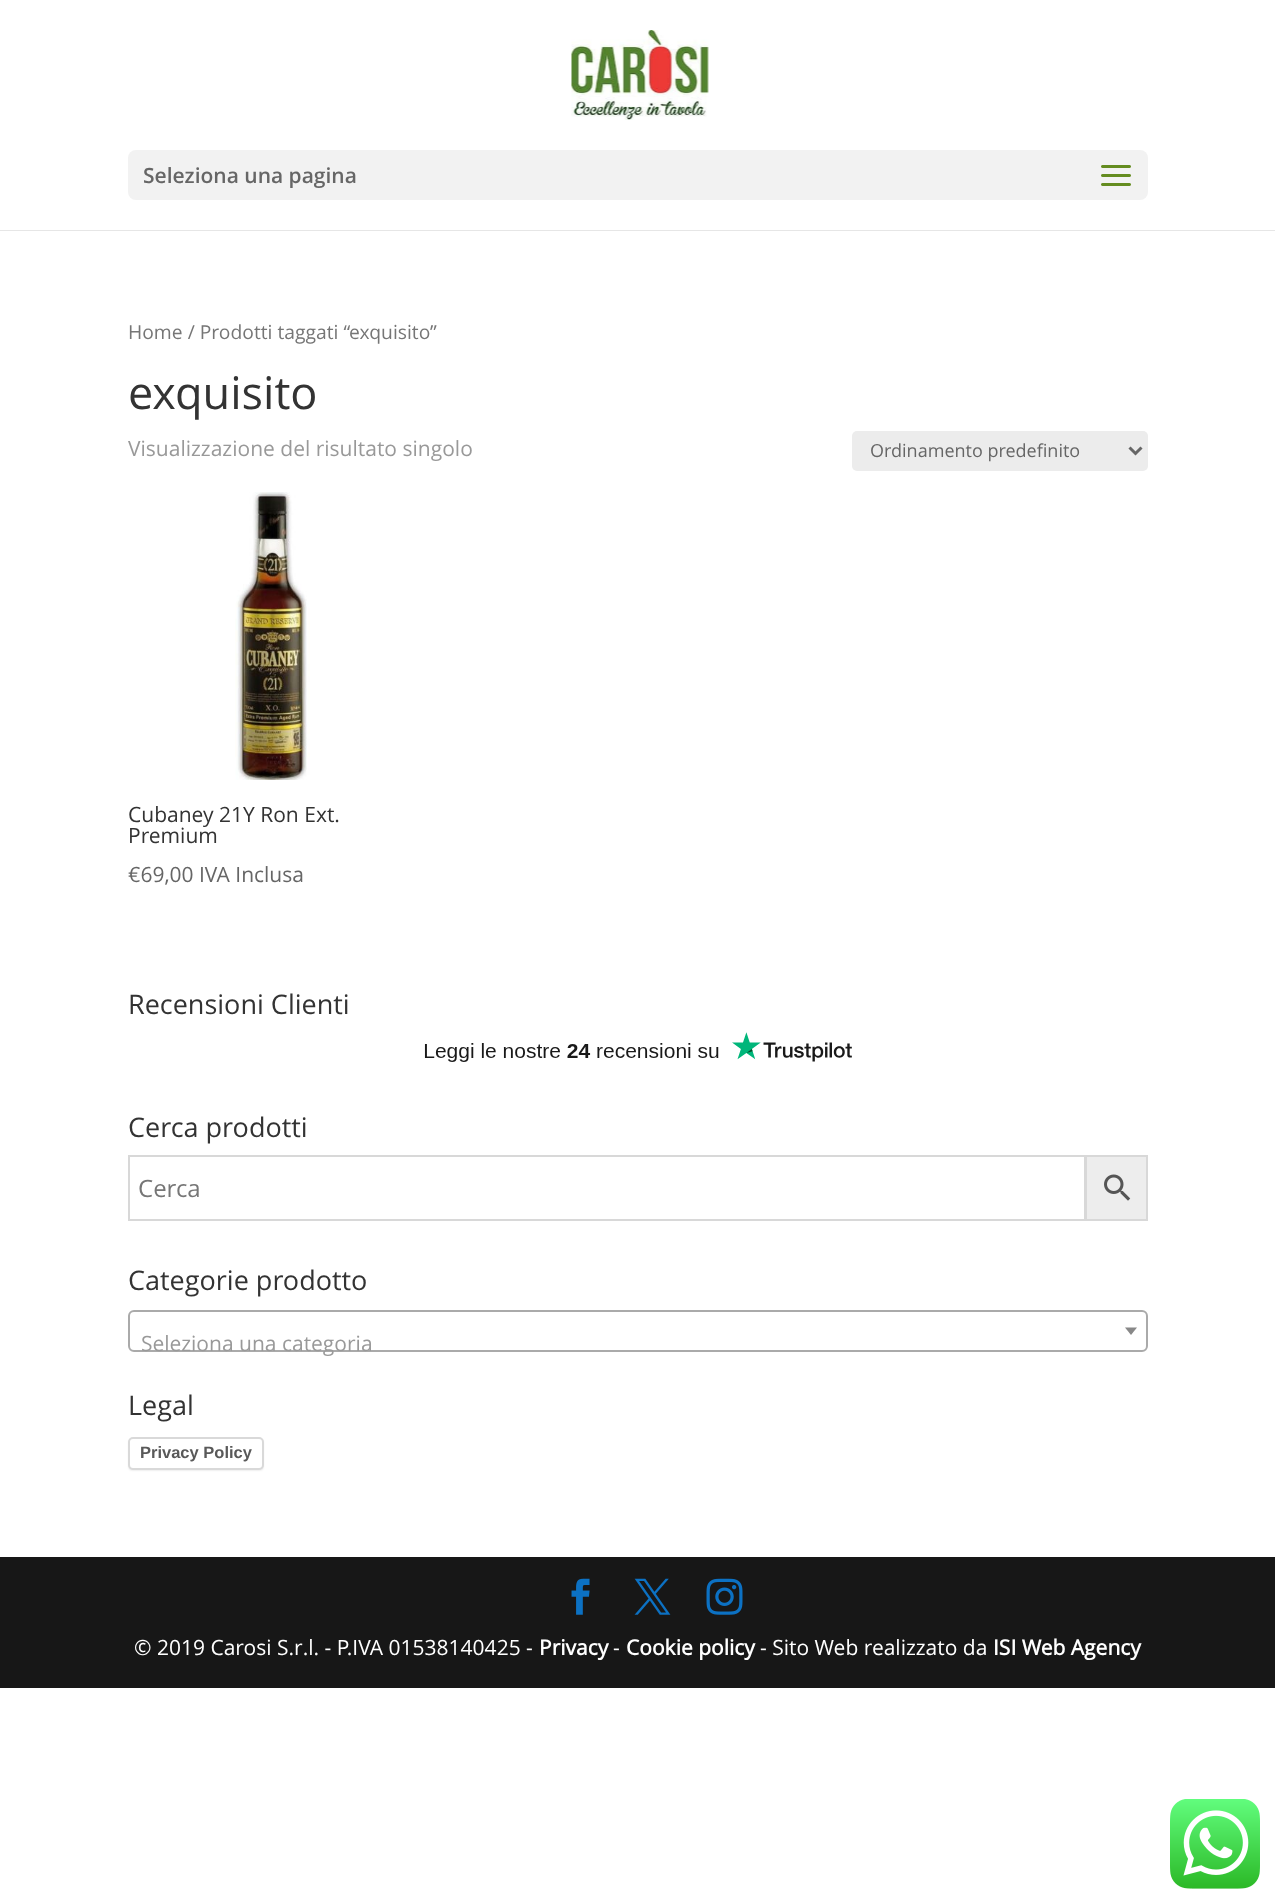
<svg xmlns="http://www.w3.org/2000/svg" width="1275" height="1903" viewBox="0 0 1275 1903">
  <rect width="100%" height="100%" fill="#fff"/>
  <path d="M0 230h1275v1H0z" fill="#e6e6e6"/>
  <image x="571" y="30" width="138" height="90" href="img/1.png"/>
  <rect x="128" y="150" width="1020" height="50" rx="8" fill="#f2f2f2"/>
  <image x="1101" y="165" width="30" height="21" href="img/2.png"/>
  <rect x="852" y="431" width="296" height="40" rx="5" fill="#ececec"/>
  <path d="M1129.5 447.5L1135.5 453.5L1141.5 447.5" fill="none" stroke="#666" stroke-width="3"/>
  <image x="235" y="492" width="75" height="288" href="img/3.png"/>
  <image x="424" y="1032" width="428" height="30" href="img/4.png"/>
  <path d="M1086 1156h61v64H1086z" fill="#ededed" stroke="#d8d8d8" stroke-width="2"/>
  <path d="M129 1156h956v64H129z" fill="none" stroke="#d8d8d8" stroke-width="2"/>
  <image x="1104" y="1174" width="27" height="27" href="img/5.png"/>
  <rect x="129" y="1311" width="1018" height="40" rx="5" fill="none" stroke="#aaa" stroke-width="2"/>
  <path d="M1125 1327.5H1137L1131 1335Z" fill="#888"/>
  <rect x="129" y="1440" width="134" height="30" rx="3" fill="#00000026" filter="blur(1px)"/>
  <rect x="129" y="1438" width="134" height="31" rx="4" fill="#fff" stroke="#d9d9d9" stroke-width="2"/>
  <path d="M0 1557h1275v131H0z" fill="#171717"/>
  <image x="571" y="1578" width="19" height="37" href="img/6.png"/>
  <image x="634" y="1578" width="37" height="37" href="img/7.png"/>
  <image x="706" y="1578" width="37" height="37" href="img/8.png"/>
  <image x="1170" y="1799" width="90" height="90" href="img/9.png"/>
  <text x="143" y="183" font-family="Open Sans" font-size="21" font-weight="600" fill="#666">Seleziona una pagina</text>
  <text x="128" y="339" font-family="Open Sans" font-size="19.3" fill="#767676">Home / Prodotti taggati “exquisito”</text>
  <text x="128" y="409" font-family="Open Sans" font-size="45" fill="#333">exquisito</text>
  <text x="128" y="456" font-family="Open Sans" font-size="21" fill="#999">Visualizzazione del risultato singolo</text>
  <text x="870" y="457" font-family="Open Sans" font-size="18" fill="#666">Ordinamento predefinito</text>
  <g font-family="Open Sans" font-size="21" fill="#333">
    <text x="128" y="822">Cubaney 21Y Ron Ext.</text>
    <text x="128" y="843">Premium</text>
  </g>
  <text x="128" y="882" font-family="Open Sans" font-size="21" fill="#666">€69,00 IVA Inclusa</text>
  <g font-family="Open Sans" font-size="27" fill="#333">
    <text x="128" y="1014">Recensioni Clienti</text>
    <text x="128" y="1137">Cerca prodotti</text>
  </g>
  <text x="138" y="1197" font-family="Open Sans" font-size="24" fill="#767676">Cerca</text>
  <text x="128" y="1290" font-family="Open Sans" font-size="27" fill="#333">Categorie prodotto</text>
  <text x="141" y="1351" font-family="Open Sans" font-size="21" fill="#999">Seleziona una categoria</text>
  <text x="128" y="1415" font-family="Open Sans" font-size="27" fill="#333">Legal</text>
  <text x="140" y="1458" font-family="Liberation Sans" font-size="16.5" font-weight="bold" fill="#595959">Privacy Policy</text>
  <text x="134" y="1655" font-family="Open Sans" font-size="21" fill="#fff">© 2019 Carosi S.r.l. - P.IVA 01538140425 -</text>
  <text x="539" y="1655" font-family="Open Sans" font-size="21" font-weight="bold" fill="#fff">Privacy</text>
  <text x="613" y="1655" font-family="Open Sans" font-size="21" fill="#fff">-</text>
  <text x="626" y="1655" font-family="Open Sans" font-size="21" font-weight="bold" fill="#fff">Cookie policy</text>
  <text x="760" y="1655" font-family="Open Sans" font-size="21" fill="#fff">- Sito Web realizzato da</text>
  <text x="993" y="1655" font-family="Open Sans" font-size="21" font-weight="bold" fill="#fff">ISI Web Agency</text>
</svg>
